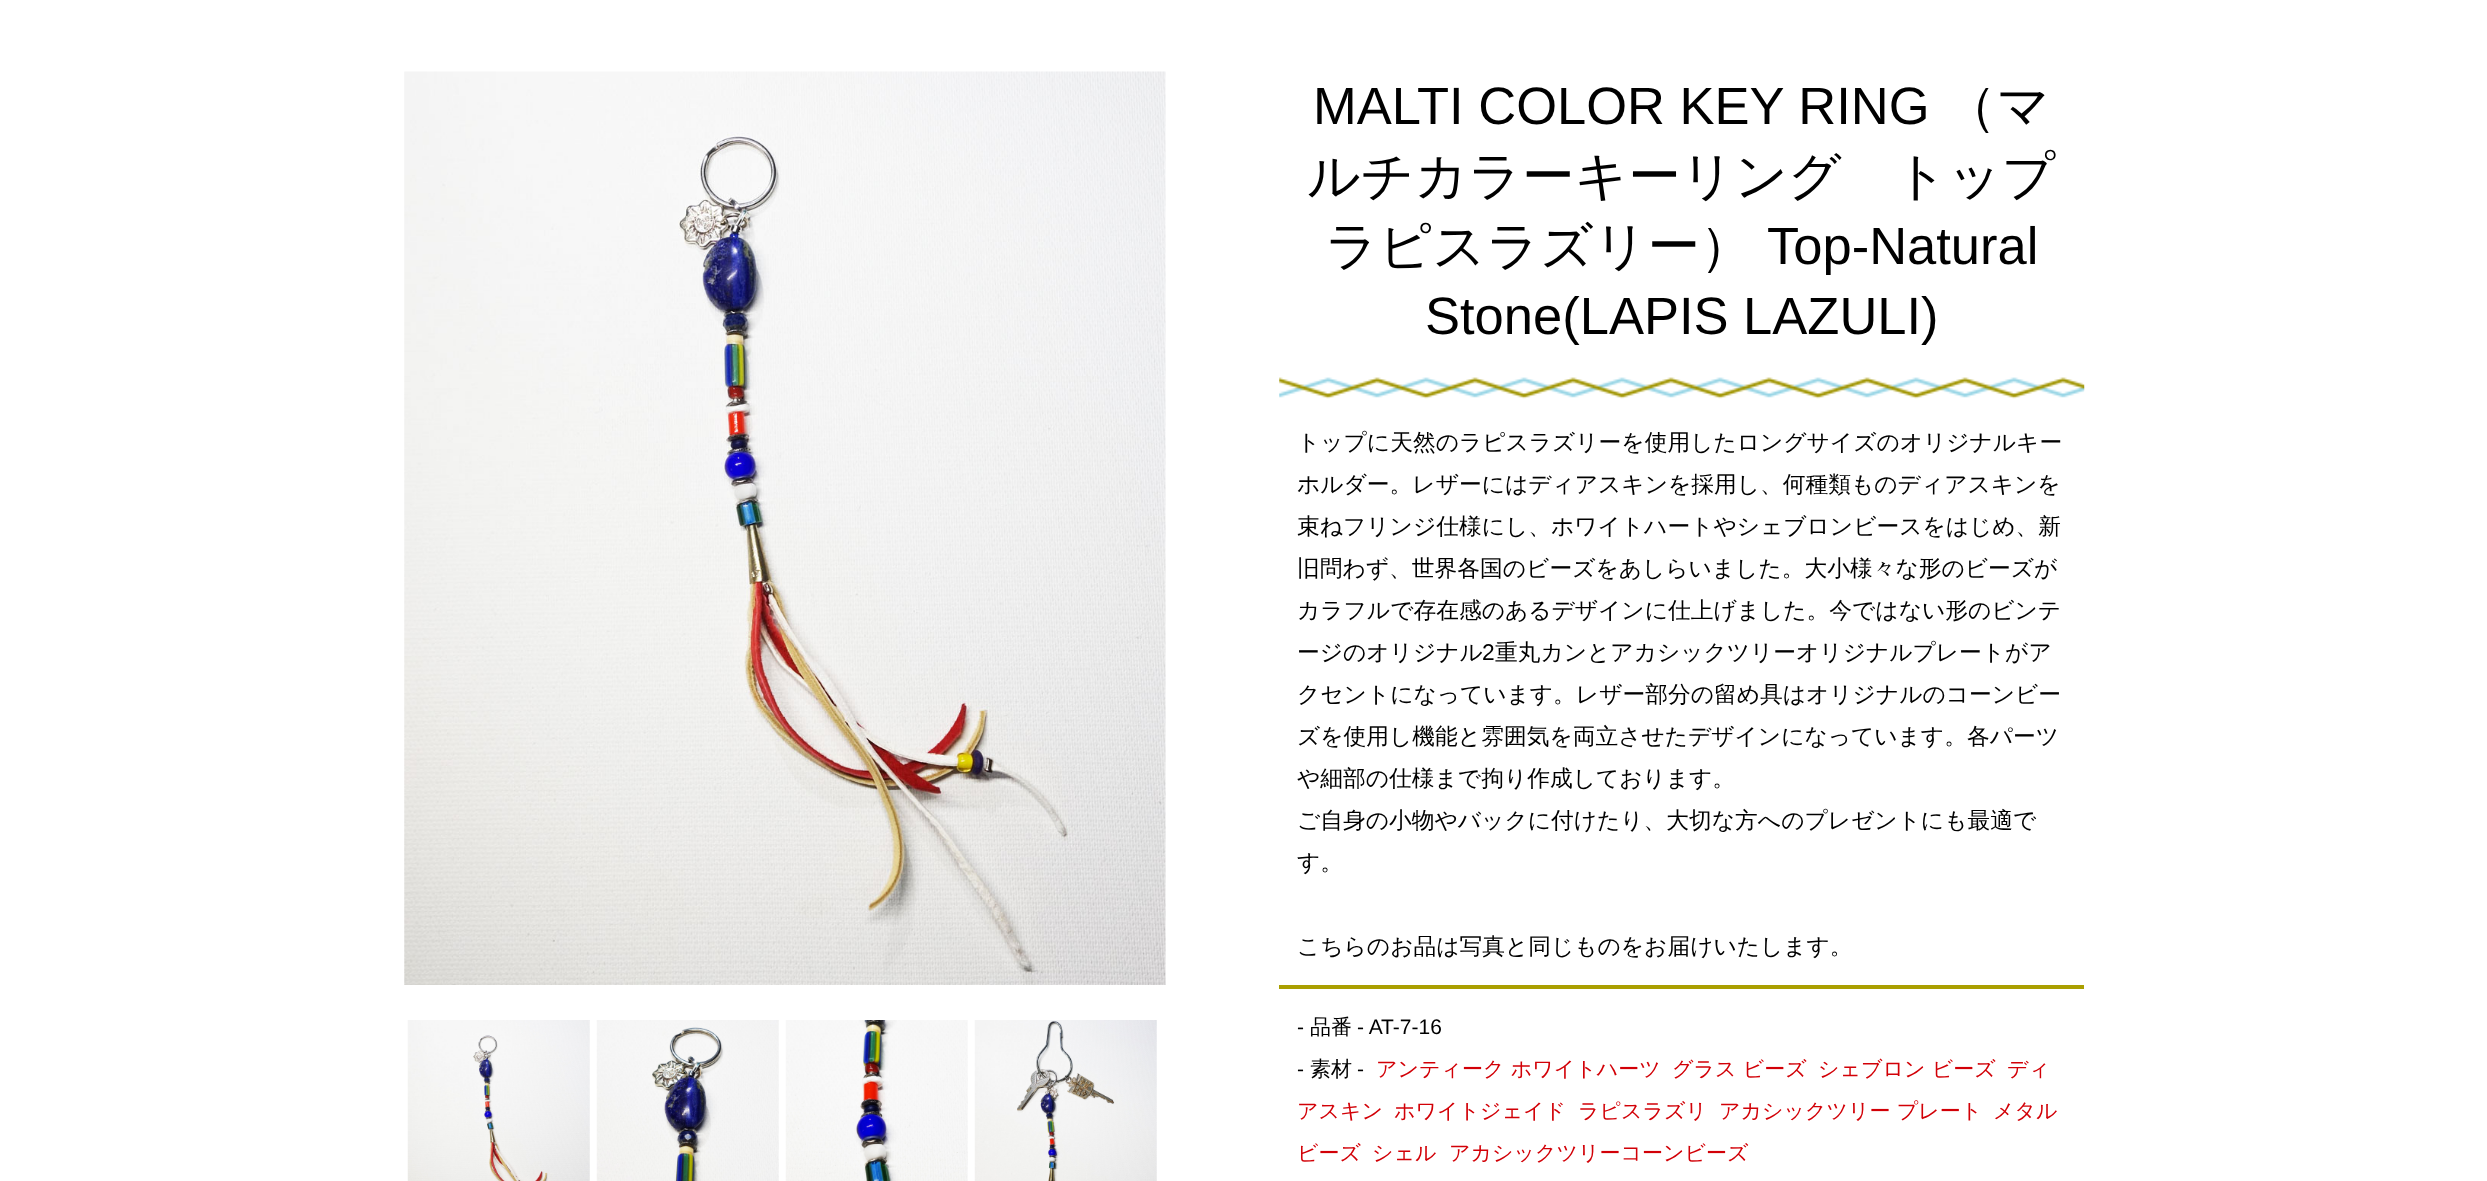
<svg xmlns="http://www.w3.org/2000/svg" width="2487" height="1181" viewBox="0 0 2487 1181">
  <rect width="100%" height="100%" fill="#fff"/>
  <image x="404" y="71" width="762" height="914" href="img/1.png"/>
  <image x="407" y="1020" width="183" height="161" href="img/2.png"/>
  <image x="596" y="1020" width="183" height="161" href="img/3.png"/>
  <image x="785" y="1020" width="183" height="161" href="img/4.png"/>
  <image x="974" y="1020" width="183" height="161" href="img/5.png"/>
  <path d="M1279 985h805v4H1279z" fill="#aa9f00"/>
  <image x="1279" y="377" width="806" height="22" href="img/6.png"/>
  <text x="1313" y="124" font-family="Liberation Sans" font-size="52.5" fill="#000">MALTI COLOR KEY RING</text>
  <g font-family="WenQuanYi Zen Hei" font-size="52.5" font-weight="500" fill="#000">
    <text x="1944" y="124">（マ</text>
    <text x="1307" y="194">ルチカラーキーリング　トップ</text>
    <text x="1325" y="264">ラピスラズリー）</text>
  </g>
  <g font-family="Liberation Sans" font-size="52.5" fill="#000">
    <text x="1767" y="264">Top-Natural</text>
    <text x="1425" y="334">Stone(LAPIS LAZULI)</text>
  </g>
  <g font-family="WenQuanYi Zen Hei" font-size="22.75" font-weight="500" fill="#000">
    <text x="1297" y="450">トップに天然のラピスラズリーを使用したロングサイズのオリジナルキー</text>
    <text x="1297" y="492">ホルダー。レザーにはディアスキンを採用し、何種類ものディアスキンを</text>
    <text x="1297" y="534">束ねフリンジ仕様にし、ホワイトハートやシェブロンビースをはじめ、新</text>
    <text x="1297" y="576">旧問わず、世界各国のビーズをあしらいました。大小様々な形のビーズが</text>
    <text x="1297" y="618">カラフルで存在感のあるデザインに仕上げました。今ではない形のビンテ</text>
    <text x="1297" y="660">ージのオリジナル</text>
  </g>
  <text x="1482" y="660" font-family="Liberation Sans" font-size="22.75" fill="#000">2</text>
  <g font-family="WenQuanYi Zen Hei" font-size="22.75" font-weight="500" fill="#000">
    <text x="1495" y="660">重丸カンとアカシックツリーオリジナルプレートがア</text>
    <text x="1297" y="702">クセントになっています。レザー部分の留め具はオリジナルのコーンビー</text>
    <text x="1297" y="744">ズを使用し機能と雰囲気を両立させたデザインになっています。各パーツ</text>
    <text x="1297" y="786">や細部の仕様まで拘り作成しております。</text>
    <text x="1297" y="828">ご自身の小物やバックに付けたり、大切な方へのプレゼントにも最適で</text>
    <text x="1297" y="870">す。</text>
    <text x="1297" y="954">こちらのお品は写真と同じものをお届けいたします。</text>
  </g>
  <text x="1297" y="1034" font-family="Liberation Sans" font-size="21" fill="#000">-</text>
  <text x="1310" y="1034" font-family="WenQuanYi Zen Hei" font-size="21" font-weight="500" fill="#000">品番</text>
  <g font-family="Liberation Sans" font-size="21" fill="#000">
    <text x="1357" y="1034">- AT-7-16</text>
    <text x="1297" y="1076">-</text>
  </g>
  <text x="1310" y="1076" font-family="WenQuanYi Zen Hei" font-size="21" font-weight="500" fill="#000">素材</text>
  <text x="1357" y="1076" font-family="Liberation Sans" font-size="21" fill="#000">-</text>
  <g font-family="WenQuanYi Zen Hei" font-size="21" font-weight="500" fill="#d20007">
    <text x="1376" y="1076">アンティーク ホワイトハーツ</text>
    <text x="1672" y="1076">グラス ビーズ</text>
    <text x="1818" y="1076">シェブロン ビーズ</text>
    <text x="2007" y="1076">ディ</text>
    <text x="1297" y="1118">アスキン</text>
    <text x="1394" y="1118">ホワイトジェイド</text>
    <text x="1578" y="1118">ラピスラズリ</text>
    <text x="1719" y="1118">アカシックツリー プレート</text>
    <text x="1993" y="1118">メタル</text>
    <text x="1297" y="1160">ビーズ</text>
    <text x="1372" y="1160">シェル</text>
    <text x="1449" y="1160">アカシックツリーコーンビーズ</text>
  </g>
</svg>
